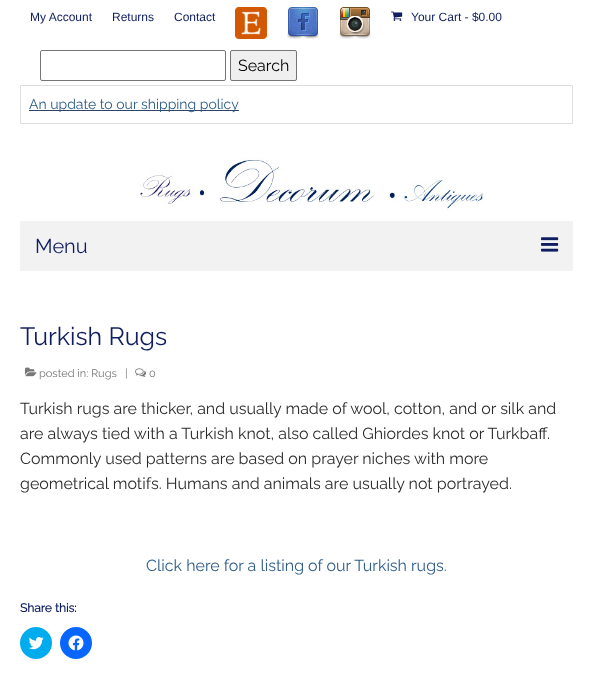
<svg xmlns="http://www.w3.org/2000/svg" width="593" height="689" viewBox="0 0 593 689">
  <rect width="100%" height="100%" fill="#fff"/>
  <image x="235" y="7" width="32" height="32" href="img/1.png"/>
  <image x="287" y="7" width="32" height="32" href="img/2.png"/>
  <image x="339" y="7" width="32" height="32" href="img/3.png"/>
  <image x="391" y="11" width="12" height="10" href="img/4.png"/>
  <rect x="40.5" y="50.5" width="185" height="30" rx="1.5" fill="none" stroke="#767676"/>
  <rect x="230.5" y="50.5" width="66" height="30" rx="1.5" fill="#efefef" stroke="#767676"/>
  <path d="M20.5 85.5h552v38H20.5z" fill="none" stroke="#dedede"/>
  <path d="M29 110h210v1H29z" fill="#2e4467"/>
  <image x="139" y="158" width="345" height="53" href="img/5.png"/>
  <path d="M20 221h553v50H20z" fill="#f2f2f2"/>
  <image x="541" y="237" width="18" height="15" href="img/6.png"/>
  <image x="25" y="367" width="12" height="10" href="img/7.png"/>
  <image x="135" y="368" width="11" height="9" href="img/8.png"/>
  <circle cx="36" cy="643" r="16" fill="#00acee"/>
  <image x="28" y="637" width="16" height="13" href="img/9.png"/>
  <circle cx="76" cy="643" r="16" fill="#0866ff"/>
  <image x="68" y="635" width="16" height="16" href="img/10.png"/>
  <g font-family="Liberation Sans" font-size="12" fill="#0f1e60">
    <text x="30" y="21">My Account</text>
    <text x="112" y="21">Returns</text>
    <text x="174" y="21">Contact</text>
    <text x="411" y="21">Your Cart - $0.00</text>
  </g>
  <text x="238" y="71" font-family="Raleway" font-size="16" font-weight="100" fill="#000">Search</text>
  <text x="29" y="109" font-family="Raleway" font-size="14" font-weight="100" fill="#2d5c88">An update to our shipping policy</text>
  <text x="35" y="253" font-family="Raleway" font-size="20" font-weight="100" fill="#0f1e60">Menu</text>
  <text x="20" y="345" font-family="Raleway" font-size="25" font-weight="100" fill="#0f1e60">Turkish Rugs</text>
  <g font-family="Raleway" font-size="11" font-weight="100" fill="#777">
    <text x="39" y="377">posted in: Rugs</text>
    <text x="125" y="377">|</text>
    <text x="149" y="377">0</text>
  </g>
  <g font-family="Raleway" font-size="16" font-weight="100" fill="#2b2b2b">
    <text x="20" y="414">Turkish rugs are thicker, and usually made of wool, cotton, and or silk and</text>
    <text x="20" y="439">are always tied with a Turkish knot, also called Ghiordes knot or Turkbaff.</text>
    <text x="20" y="464">Commonly used patterns are based on prayer niches with more</text>
    <text x="20" y="489">geometrical motifs. Humans and animals are usually not portrayed.</text>
  </g>
  <text x="146" y="571" font-family="Raleway" font-size="16" font-weight="100" fill="#2d5c88">Click here for a listing of our Turkish rugs.</text>
  <text x="20" y="612" font-family="Raleway" font-size="12" font-weight="bold" fill="#0f1e60">Share this:</text>
</svg>
